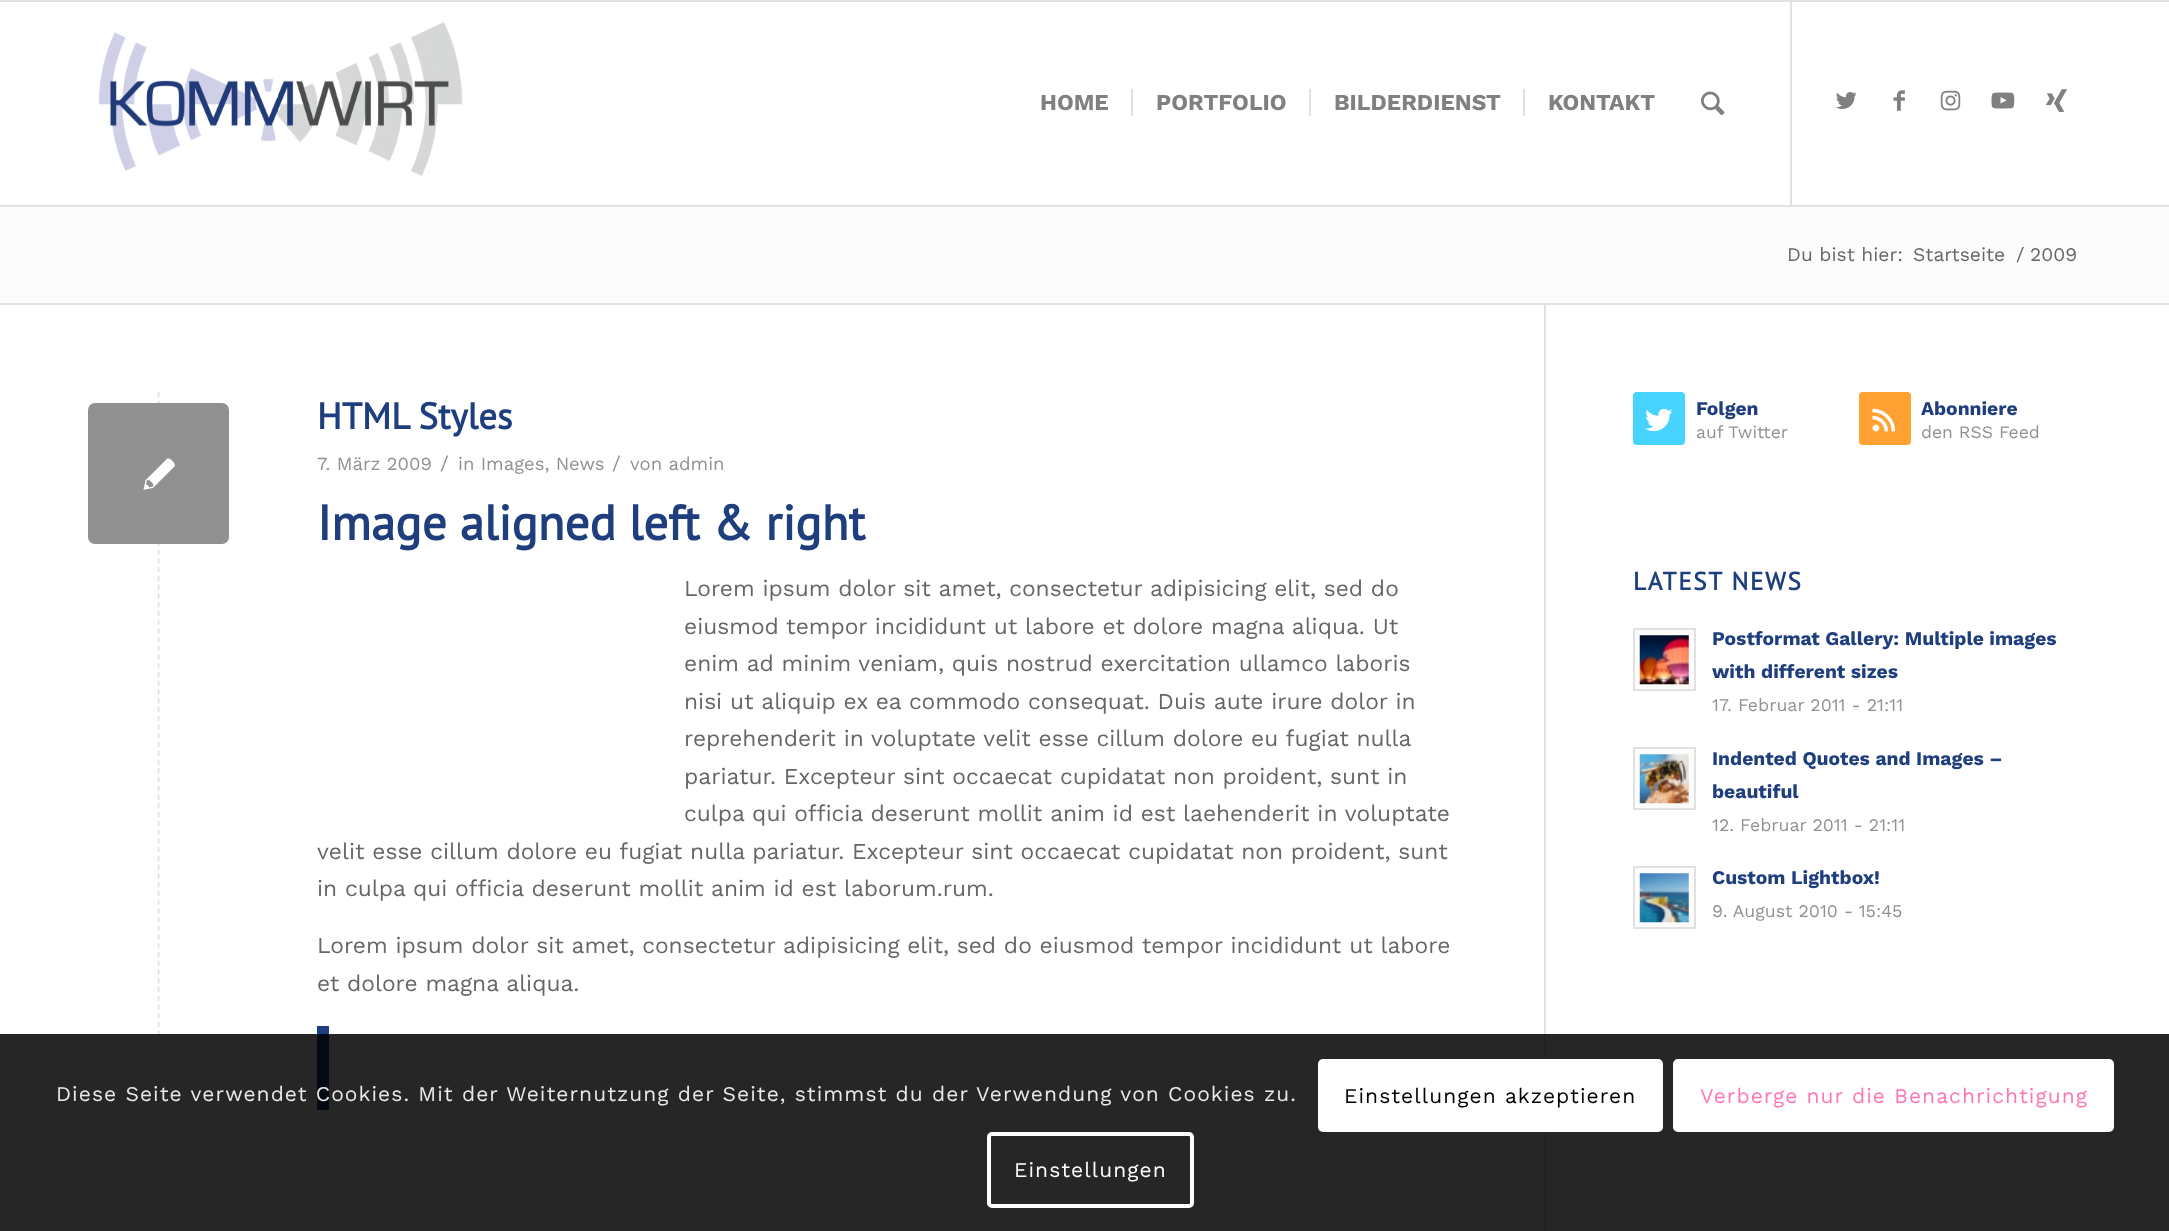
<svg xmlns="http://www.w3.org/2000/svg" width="2169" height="1231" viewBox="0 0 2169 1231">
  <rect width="100%" height="100%" fill="#fff"/>
  <path d="M0 0h2169v2H0z" fill="#e1e1e1"/>
  <path d="M0 205h2169v2H0z" fill="#e1e1e1"/>
  <image x="98" y="22" width="365" height="154" href="img/1.png"/>
  <path d="M1790 2h2v203H1790z" fill="#e1e1e1"/>
  <path d="M1131 89h2v27H1131z" fill="#e1e1e1"/>
  <path d="M1309 89h2v27H1309z" fill="#e1e1e1"/>
  <path d="M1523 89h2v27H1523z" fill="#e1e1e1"/>
  <image x="1701" y="91" width="24" height="25" href="img/2.png"/>
  <image x="1836" y="92" width="21" height="17" href="img/3.png"/>
  <image x="1893" y="90" width="12" height="21" href="img/4.png"/>
  <image x="1940" y="90" width="21" height="21" href="img/5.png"/>
  <image x="1991" y="92" width="24" height="17" href="img/6.png"/>
  <image x="2045" y="89" width="22" height="23" href="img/7.png"/>
  <path d="M0 207h2169v96H0z" fill="#fcfcfc"/>
  <path d="M0 303h2169v2H0z" fill="#e1e1e1"/>
  <path d="M1544 305h2v926H1544z" fill="#e1e1e1"/>
  <path d="M158.5 392V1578.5" fill="none" stroke="#e1e1e1" stroke-width="1.8" stroke-dasharray="5.25 3.5"/>
  <path d="M317 1026h12v84H317z" fill="#1f3e7d"/>
  <rect x="88" y="403" width="141" height="141" rx="7" fill="#919191"/>
  <image x="143" y="458" width="32" height="32" href="img/8.png"/>
  <rect x="1633" y="392" width="52" height="53" rx="4" fill="#46d4fe"/>
  <image x="1645" y="409" width="28" height="23" href="img/9.png"/>
  <rect x="1859" y="392" width="52" height="53" rx="4" fill="#ffa133"/>
  <image x="1872" y="408" width="24" height="24" href="img/10.png"/>
  <path d="M1634 629h61v61H1634z" fill="#fcfcfc" stroke="#e1e1e1" stroke-width="2"/>
  <image x="1639" y="635" width="50" height="50" href="img/11.png"/>
  <path d="M1634 748h61v61H1634z" fill="#fcfcfc" stroke="#e1e1e1" stroke-width="2"/>
  <image x="1639" y="754" width="50" height="50" href="img/12.png"/>
  <path d="M1634 867h61v61H1634z" fill="#fcfcfc" stroke="#e1e1e1" stroke-width="2"/>
  <image x="1639" y="873" width="50" height="50" href="img/13.png"/>
  <path d="M0 1034h2169v197H0z" fill="#000000d9"/>
  <rect x="1318" y="1059" width="345" height="73" rx="5" fill="#fff"/>
  <rect x="1675" y="1061" width="437" height="69" rx="3" fill="#fff" stroke="#fff" stroke-width="4"/>
  <rect x="989" y="1134" width="203" height="72" rx="3" fill="none" stroke="#fff" stroke-width="4"/>
  <g font-family="Work Sans" font-size="22.75" font-weight="bold" fill="#808080">
    <text x="1040" y="110">HOME</text>
    <text x="1156" y="110">PORTFOLIO</text>
    <text x="1334" y="110">BILDERDIENST</text>
    <text x="1548" y="110">KONTAKT</text>
  </g>
  <g font-family="Work Sans" font-size="19.25" fill="#666">
    <text x="1787" y="261">Du bist hier:</text>
    <text x="1913" y="261">Startseite</text>
    <text x="2016" y="261">/</text>
    <text x="2030" y="261">2009</text>
  </g>
  <text x="317" y="429" font-family="PT Sans" font-size="36.75" font-weight="bold" fill="#1f3e7d">HTML Styles</text>
  <text x="317" y="470" font-family="Work Sans" font-size="18.5" fill="#919191">7. März 2009</text>
  <text x="440" y="470" font-family="Work Sans" font-size="20" fill="#919191">/</text>
  <text x="458" y="470" font-family="Work Sans" font-size="18.5" fill="#919191">in Images, News</text>
  <text x="612" y="470" font-family="Work Sans" font-size="20" fill="#919191">/</text>
  <text x="630" y="470" font-family="Work Sans" font-size="18.5" fill="#919191">von admin</text>
  <text x="317" y="540" font-family="PT Sans" font-size="49" font-weight="bold" fill="#1f3e7d">Image aligned left &amp; right</text>
  <g font-family="Work Sans" font-size="22.75" fill="#666">
    <text x="684" y="596">Lorem ipsum dolor sit amet, consectetur adipisicing elit, sed do</text>
    <text x="684" y="634">eiusmod tempor incididunt ut labore et dolore magna aliqua. Ut</text>
    <text x="684" y="671">enim ad minim veniam, quis nostrud exercitation ullamco laboris</text>
    <text x="684" y="709">nisi ut aliquip ex ea commodo consequat. Duis aute irure dolor in</text>
    <text x="684" y="746">reprehenderit in voluptate velit esse cillum dolore eu fugiat nulla</text>
    <text x="684" y="784">pariatur. Excepteur sint occaecat cupidatat non proident, sunt in</text>
    <text x="684" y="821">culpa qui officia deserunt mollit anim id est laehenderit in voluptate</text>
    <text x="317" y="859">velit esse cillum dolore eu fugiat nulla pariatur. Excepteur sint occaecat cupidatat non proident, sunt</text>
    <text x="317" y="896">in culpa qui officia deserunt mollit anim id est laborum.rum.</text>
    <text x="317" y="953">Lorem ipsum dolor sit amet, consectetur adipisicing elit, sed do eiusmod tempor incididunt ut labore</text>
    <text x="317" y="991">et dolore magna aliqua.</text>
  </g>
  <text x="1696" y="415" font-family="Work Sans" font-size="19.25" font-weight="bold" fill="#1f3e7d">Folgen</text>
  <text x="1696" y="438" font-family="Work Sans" font-size="17.5" fill="#919191">auf Twitter</text>
  <text x="1921" y="415" font-family="Work Sans" font-size="19.25" font-weight="bold" fill="#1f3e7d">Abonniere</text>
  <text x="1921" y="438" font-family="Work Sans" font-size="17.5" fill="#919191">den RSS Feed</text>
  <text x="1633" y="590" font-family="PT Sans" font-size="25" font-weight="bold" letter-spacing="1.75" fill="#1f3e7d">LATEST NEWS</text>
  <g font-family="Work Sans" font-size="19.3" font-weight="bold" fill="#1f3e7d">
    <text x="1712" y="645">Postformat Gallery: Multiple images</text>
    <text x="1712" y="678">with different sizes</text>
  </g>
  <text x="1712" y="711" font-family="Work Sans" font-size="17.75" fill="#919191">17. Februar 2011 - 21:11</text>
  <g font-family="Work Sans" font-size="19.3" font-weight="bold" fill="#1f3e7d">
    <text x="1712" y="765">Indented Quotes and Images –</text>
    <text x="1712" y="798">beautiful</text>
  </g>
  <text x="1712" y="831" font-family="Work Sans" font-size="17.75" fill="#919191">12. Februar 2011 - 21:11</text>
  <text x="1712" y="884" font-family="Work Sans" font-size="19.3" font-weight="bold" fill="#1f3e7d">Custom Lightbox!</text>
  <text x="1712" y="917" font-family="Work Sans" font-size="17.75" fill="#919191">9. August 2010 - 15:45</text>
  <text x="56" y="1101" font-family="Work Sans" font-size="21" letter-spacing="1.05" fill="#e9e9e9">Diese Seite verwendet Cookies. Mit der Weiternutzung der Seite, stimmst du der Verwendung von Cookies zu.</text>
  <text x="1344" y="1103" font-family="Work Sans" font-size="21" letter-spacing="1.05" fill="#000">Einstellungen akzeptieren</text>
  <text x="1700" y="1103" font-family="Work Sans" font-size="21" letter-spacing="1.05" fill="#ff75b5">Verberge nur die Benachrichtigung</text>
  <text x="1014" y="1177" font-family="Work Sans" font-size="21" letter-spacing="1.05" fill="#fff">Einstellungen</text>
</svg>
